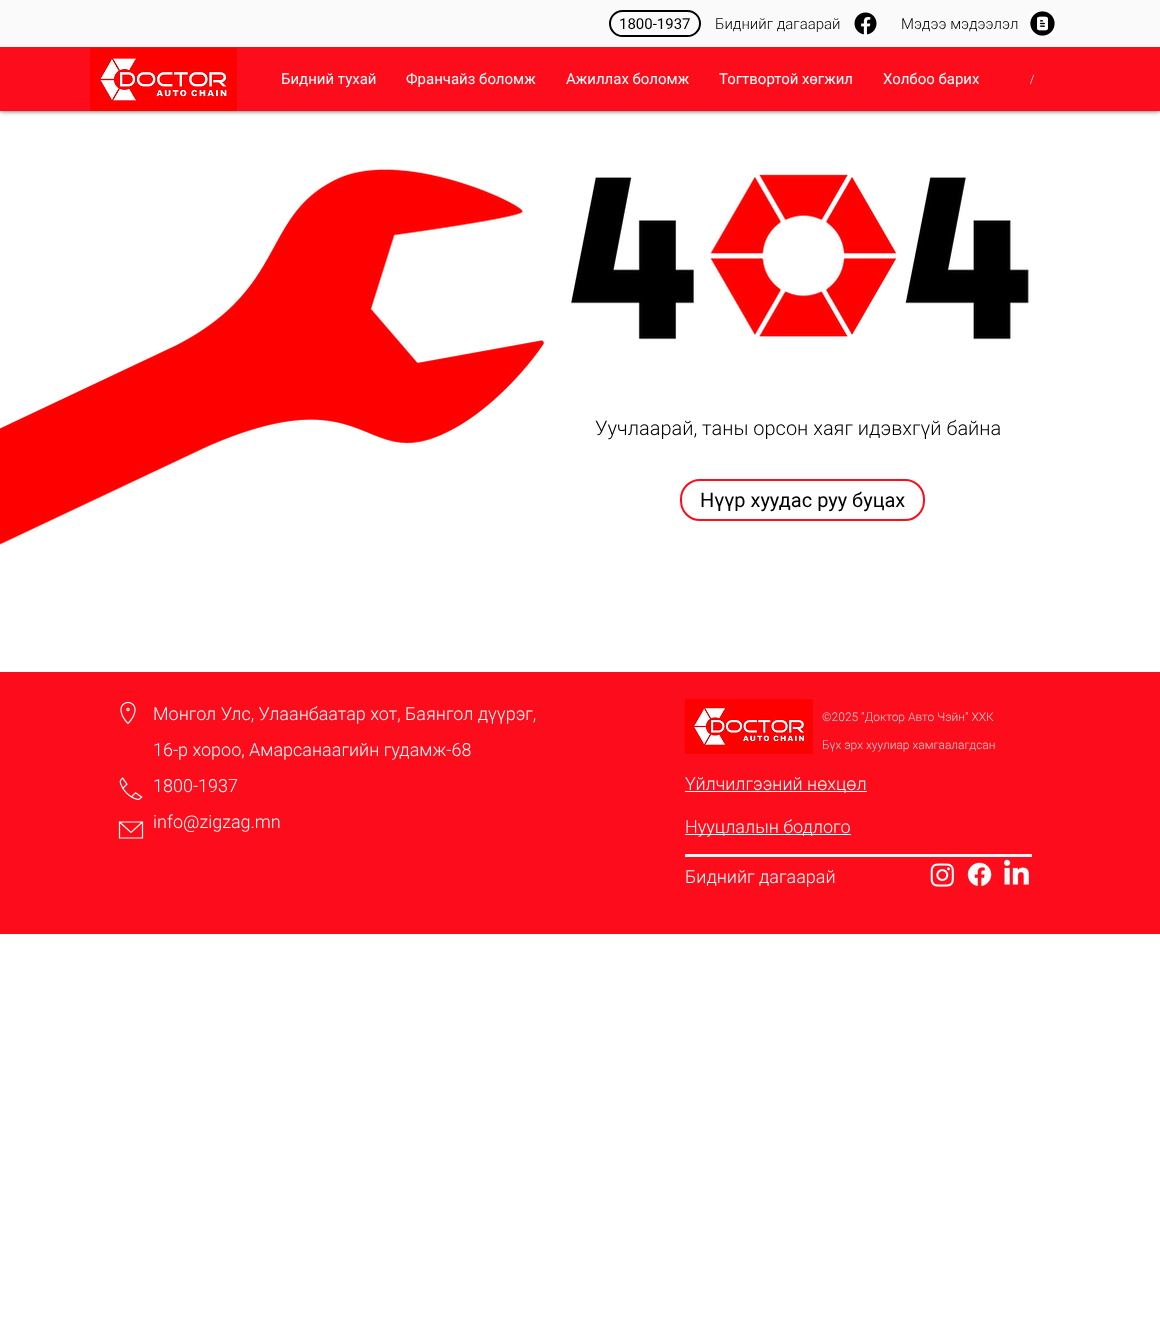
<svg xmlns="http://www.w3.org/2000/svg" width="1160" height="1331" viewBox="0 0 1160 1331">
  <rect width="100%" height="100%" fill="#fff"/>
  <path d="M0 0h1160v111H0z" fill="#000000b3" filter="blur(2.5px)"/>
  <path d="M0 47h1160v64H0z" fill="#fd0d1b"/>
  <path d="M0 0h1160v47H0z" fill="#fafafa"/>
  <rect x="610" y="11" width="90" height="25" rx="12.5" fill="none" stroke="#000" stroke-width="2"/>
  <image x="854" y="12" width="23" height="23" href="img/1.png"/>
  <image x="1030" y="11" width="25" height="25" href="img/2.png"/>
  <image x="90" y="48" width="147" height="63" href="img/3.png"/>
  <path d="M1030 84L1033.5 74.5L1034 75L1030.5 84.5Z" fill="#fff"/>
  <rect x="681" y="480" width="243" height="40" rx="19" fill="none" stroke="#fd0d1b" stroke-width="2"/>
  <path d="M0 672h1160v262H0z" fill="#fd0d1b"/>
  <image x="120" y="701" width="16" height="24" href="img/5.png"/>
  <image x="685" y="699" width="128" height="55" href="img/6.png"/>
  <image x="119" y="777" width="24" height="23" href="img/7.png"/>
  <path d="M685 791h182v1H685z" fill="#fff"/>
  <path d="M142.5 822V838H119.5V822ZM119.5 822L131 832.5L142.5 822" fill="none" stroke="#fff" stroke-width="1.2" stroke-linecap="round"/>
  <path d="M685 834h166v1H685z" fill="#fff"/>
  <path d="M685 854h347v3H685z" fill="#f3f3f3"/>
  <image x="930" y="863" width="24" height="24" href="img/8.png"/>
  <image x="967" y="862" width="25" height="25" href="img/9.png"/>
  <image x="1004" y="859" width="25" height="26" href="img/10.png"/>
  <text x="619" y="29" font-family="Roboto" font-size="15" fill="#000">1800-1937</text>
  <g font-family="Roboto" font-size="15" font-weight="300" fill="#000">
    <text x="715" y="29">Биднийг дагаарай</text>
    <text x="901" y="29">Мэдээ мэдээлэл</text>
  </g>
  <g font-family="Roboto" font-size="15" fill="#fff">
    <text x="281" y="84">Бидний тухай</text>
    <text x="406" y="84">Франчайз боломж</text>
    <text x="566" y="84">Ажиллах боломж</text>
    <text x="719" y="84">Тогтвортой хөгжил</text>
    <text x="883" y="84">Холбоо барих</text>
  </g>
  <text x="700" y="507" font-family="Roboto" font-size="20" fill="#000">Нүүр хуудас руу буцах</text>
  <image x="0" y="169" width="1031" height="376" href="img/4.png"/>
  <text x="595" y="435" font-family="Roboto" font-size="20" font-weight="300" fill="#000">Уучлаарай, таны орсон хаяг идэвхгүй байна</text>
  <g font-family="Roboto" font-size="18" font-weight="300" fill="#fff">
    <text x="153" y="720">Монгол Улс, Улаанбаатар хот, Баянгол дүүрэг,</text>
    <text x="153" y="756">16-р хороо, Амарсанаагийн гудамж-68</text>
    <text x="153" y="792">1800-1937</text>
    <text x="153" y="828">info@zigzag.mn</text>
  </g>
  <g font-family="Roboto" font-size="12" font-weight="300" fill="#dbdbdb">
    <text x="822" y="721">©2025 "Доктор Авто Чэйн" ХХК</text>
    <text x="822" y="749">Бүх эрх хуулиар хамгаалагдсан</text>
  </g>
  <g font-family="Roboto" font-size="18" font-weight="300" fill="#fff">
    <text x="685" y="790">Үйлчилгээний нөхцөл</text>
    <text x="685" y="833">Нууцлалын бодлого</text>
    <text x="685" y="883">Биднийг дагаарай</text>
  </g>
</svg>
